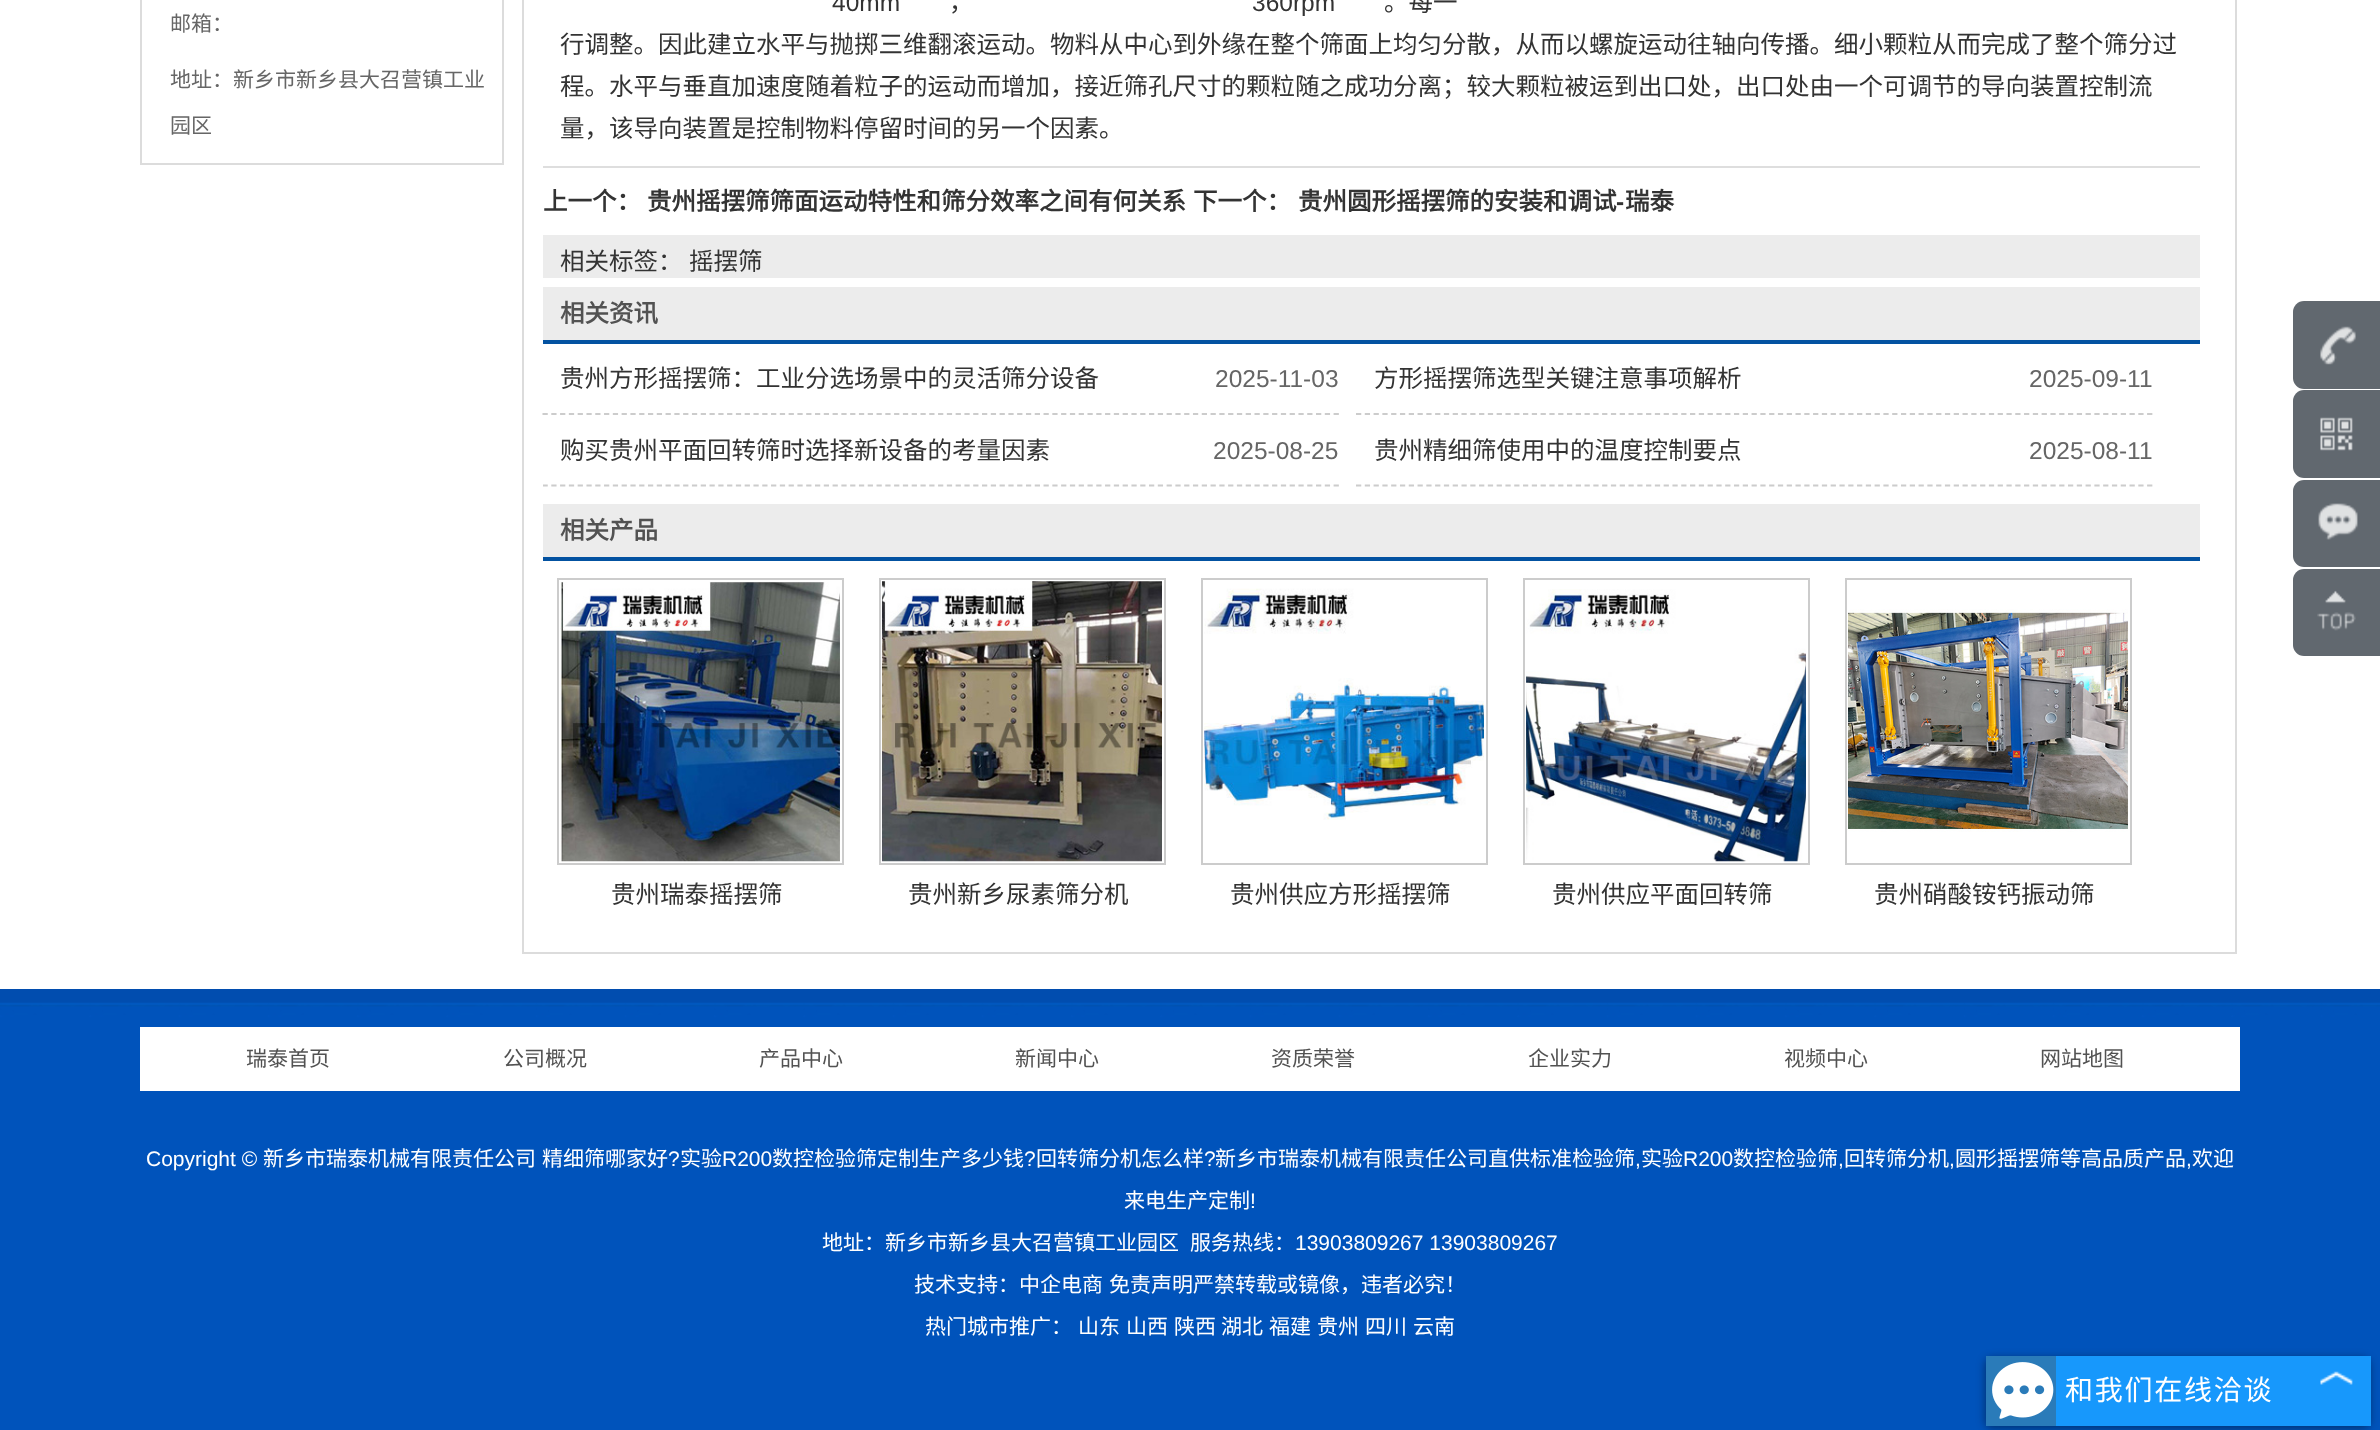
<svg xmlns="http://www.w3.org/2000/svg" width="2380" height="1430" viewBox="0 0 2380 1430">
  <defs>
    <clipPath id="clip1"><path d="M543 343h1657v144H543z"/></clipPath>
  </defs>
  <rect width="100%" height="100%" fill="#fff"/>
  <path d="M502 0h2v165H502z" fill="#dcdcdc"/>
  <path d="M140 163h364v2H140z" fill="#dcdcdc"/>
  <path d="M140 0h2v165H140z" fill="#dcdcdc"/>
  <path d="M2235 0h2v954H2235z" fill="#dcdcdc"/>
  <path d="M522 952h1715v2H522z" fill="#dcdcdc"/>
  <path d="M522 0h2v954H522z" fill="#dcdcdc"/>
  <path d="M543 166h1657v2H543z" fill="#dedede"/>
  <path d="M543 235h1657v43H543z" fill="#ececec"/>
  <path d="M543 287h1657v53H543z" fill="#ececec"/>
  <path d="M543 340h1657v4H543z" fill="#0352a1"/>
  <path d="M542.5 414H1339" fill="none" stroke="#ccc" stroke-width="1.8" stroke-dasharray="5.25 3.54"/>
  <path d="M1356 414H2152.5" fill="none" stroke="#ccc" stroke-width="1.8" stroke-dasharray="5.25 3.54"/>
  <g clip-path="url(#clip1)">
    <path d="M542.5 485.5H1339" fill="none" stroke="#ccc" stroke-width="1.8" stroke-dasharray="5.25 3.54"/>
  </g>
  <path d="M1356 485.5H2152.5" fill="none" stroke="#ccc" stroke-width="1.8" stroke-dasharray="5.25 3.54"/>
  <path d="M543 504h1657v53H543z" fill="#ececec"/>
  <path d="M543 557h1657v4H543z" fill="#0352a1"/>
  <path d="M558 579h285v285H558z" fill="none" stroke="#ccc" stroke-width="2"/>
  <image x="560" y="582" width="280" height="280" href="img/1.png"/>
  <path d="M880 579h285v285H880z" fill="none" stroke="#ccc" stroke-width="2"/>
  <image x="882" y="581" width="280" height="281" href="img/2.png"/>
  <path d="M1202 579h285v285H1202z" fill="none" stroke="#ccc" stroke-width="2"/>
  <image x="1204" y="588" width="280" height="232" href="img/3.png"/>
  <path d="M1524 579h285v285H1524z" fill="none" stroke="#ccc" stroke-width="2"/>
  <image x="1526" y="589" width="280" height="273" href="img/4.png"/>
  <path d="M1846 579h285v285H1846z" fill="none" stroke="#ccc" stroke-width="2"/>
  <image x="1848" y="609" width="280" height="223" href="img/5.png"/>
  <rect x="2293" y="301" width="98" height="88" rx="11" fill="#61686f"/>
  <image x="2320" y="326" width="36" height="39" href="img/6.png"/>
  <rect x="2293" y="390" width="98" height="88" rx="11" fill="#61686f"/>
  <image x="2320" y="417" width="33" height="34" href="img/7.png"/>
  <rect x="2293" y="480" width="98" height="87" rx="11" fill="#61686f"/>
  <image x="2318" y="503" width="40" height="37" href="img/8.png"/>
  <rect x="2293" y="569" width="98" height="87" rx="11" fill="#61686f"/>
  <image x="2317" y="590" width="39" height="41" href="img/9.png"/>
  <image x="0" y="989" width="2380" height="441" href="img/10.png"/>
  <path d="M140 1027h2100v64H140z" fill="#fff"/>
  <rect x="1985" y="1358" width="385" height="70" rx="7" fill="#00000066" filter="blur(4.5px)"/>
  <path d="M2056 1356h315v70H2056z" fill="#1798fc"/>
  <path d="M1986 1356h70v70H1986z" fill="#2a7bb9"/>
  <image x="1992" y="1362" width="62" height="57" href="img/11.png"/>
  <image x="2320" y="1371" width="33" height="14" href="img/12.png"/>
  <g font-family="Noto Sans CJK SC" font-size="21" fill="#666">
    <text x="170" y="31">邮箱：</text>
    <text x="170" y="87">地址：新乡市新乡县大召营镇工业</text>
    <text x="170" y="133">园区</text>
  </g>
  <text x="832" y="11" font-family="Liberation Sans" font-size="24.5" fill="#333">40mm</text>
  <text x="949" y="11" font-family="Noto Sans CJK SC" font-size="24.5" fill="#333">，</text>
  <text x="1252" y="11" font-family="Liberation Sans" font-size="24.5" fill="#333">360rpm</text>
  <g font-family="Noto Sans CJK SC" font-size="24.5" fill="#333">
    <text x="1384" y="11">。每一</text>
    <text x="560" y="53">行调整。因此建立水平与抛掷三维翻滚运动。物料从中心到外缘在整个筛面上均匀分散，从而以螺旋运动往轴向传播。细小颗粒从而完成了整个筛分过</text>
    <text x="560" y="95">程。水平与垂直加速度随着粒子的运动而增加，接近筛孔尺寸的颗粒随之成功分离；较大颗粒被运到出口处，出口处由一个可调节的导向装置控制流</text>
    <text x="560" y="137">量，该导向装置是控制物料停留时间的另一个因素。</text>
  </g>
  <g font-family="Noto Sans CJK SC" font-size="24.5" font-weight="bold" fill="#333">
    <text x="543" y="210">上一个：</text>
    <text x="647" y="210">贵州摇摆筛筛面运动特性和筛分效率之间有何关系</text>
    <text x="1193" y="210">下一个：</text>
    <text x="1298" y="210">贵州圆形摇摆筛的安装和调试</text>
  </g>
  <text x="1616" y="210" font-family="Liberation Sans" font-size="24.5" font-weight="bold" fill="#333">-</text>
  <text x="1625" y="210" font-family="Noto Sans CJK SC" font-size="24.5" font-weight="bold" fill="#333">瑞泰</text>
  <g font-family="Noto Sans CJK SC" font-size="24.5" fill="#333">
    <text x="560" y="270">相关标签：</text>
    <text x="689" y="270">摇摆筛</text>
  </g>
  <text x="560" y="322" font-family="Noto Sans CJK SC" font-size="24.5" font-weight="bold" fill="#525252">相关资讯</text>
  <text x="560" y="387" font-family="Noto Sans CJK SC" font-size="24.5" fill="#333">贵州方形摇摆筛：工业分选场景中的灵活筛分设备</text>
  <text x="1215" y="387" font-family="Liberation Sans" font-size="24.5" fill="#666">2025-11-03</text>
  <text x="1374" y="387" font-family="Noto Sans CJK SC" font-size="24.5" fill="#333">方形摇摆筛选型关键注意事项解析</text>
  <text x="2029" y="387" font-family="Liberation Sans" font-size="24.5" fill="#666">2025-09-11</text>
  <text x="560" y="459" font-family="Noto Sans CJK SC" font-size="24.5" fill="#333">购买贵州平面回转筛时选择新设备的考量因素</text>
  <text x="1213" y="459" font-family="Liberation Sans" font-size="24.5" fill="#666">2025-08-25</text>
  <text x="1374" y="459" font-family="Noto Sans CJK SC" font-size="24.5" fill="#333">贵州精细筛使用中的温度控制要点</text>
  <text x="2029" y="459" font-family="Liberation Sans" font-size="24.5" fill="#666">2025-08-11</text>
  <text x="560" y="539" font-family="Noto Sans CJK SC" font-size="24.5" font-weight="bold" fill="#525252">相关产品</text>
  <g font-family="Noto Sans CJK SC" font-size="24.5" fill="#333">
    <text x="611" y="903">贵州瑞泰摇摆筛</text>
    <text x="908" y="903">贵州新乡尿素筛分机</text>
    <text x="1230" y="903">贵州供应方形摇摆筛</text>
    <text x="1552" y="903">贵州供应平面回转筛</text>
    <text x="1874" y="903">贵州硝酸铵钙振动筛</text>
  </g>
  <g font-family="Noto Sans CJK SC" font-size="21" fill="#525252">
    <text x="246" y="1066">瑞泰首页</text>
    <text x="503" y="1066">公司概况</text>
    <text x="759" y="1066">产品中心</text>
    <text x="1015" y="1066">新闻中心</text>
    <text x="1271" y="1066">资质荣誉</text>
    <text x="1528" y="1066">企业实力</text>
    <text x="1784" y="1066">视频中心</text>
    <text x="2040" y="1066">网站地图</text>
  </g>
  <text x="146" y="1166" font-family="Liberation Sans" font-size="21" fill="#fff">Copyright ©</text>
  <g font-family="Noto Sans CJK SC" font-size="21" fill="#fff">
    <text x="263" y="1166">新乡市瑞泰机械有限责任公司</text>
    <text x="542" y="1166">精细筛哪家好</text>
  </g>
  <text x="668" y="1166" font-family="Liberation Sans" font-size="21" fill="#fff">?</text>
  <text x="680" y="1166" font-family="Noto Sans CJK SC" font-size="21" fill="#fff">实验</text>
  <text x="722" y="1166" font-family="Liberation Sans" font-size="21" fill="#fff">R200</text>
  <text x="772" y="1166" font-family="Noto Sans CJK SC" font-size="21" fill="#fff">数控检验筛定制生产多少钱</text>
  <text x="1024" y="1166" font-family="Liberation Sans" font-size="21" fill="#fff">?</text>
  <text x="1036" y="1166" font-family="Noto Sans CJK SC" font-size="21" fill="#fff">回转筛分机怎么样</text>
  <text x="1204" y="1166" font-family="Liberation Sans" font-size="21" fill="#fff">?</text>
  <text x="1215" y="1166" font-family="Noto Sans CJK SC" font-size="21" fill="#fff">新乡市瑞泰机械有限责任公司直供标准检验筛</text>
  <text x="1635" y="1166" font-family="Liberation Sans" font-size="21" fill="#fff">,</text>
  <text x="1641" y="1166" font-family="Noto Sans CJK SC" font-size="21" fill="#fff">实验</text>
  <text x="1683" y="1166" font-family="Liberation Sans" font-size="21" fill="#fff">R200</text>
  <text x="1733" y="1166" font-family="Noto Sans CJK SC" font-size="21" fill="#fff">数控检验筛</text>
  <text x="1838" y="1166" font-family="Liberation Sans" font-size="21" fill="#fff">,</text>
  <text x="1844" y="1166" font-family="Noto Sans CJK SC" font-size="21" fill="#fff">回转筛分机</text>
  <text x="1949" y="1166" font-family="Liberation Sans" font-size="21" fill="#fff">,</text>
  <text x="1955" y="1166" font-family="Noto Sans CJK SC" font-size="21" fill="#fff">圆形摇摆筛等高品质产品</text>
  <text x="2186" y="1166" font-family="Liberation Sans" font-size="21" fill="#fff">,</text>
  <g font-family="Noto Sans CJK SC" font-size="21" fill="#fff">
    <text x="2192" y="1166">欢迎</text>
    <text x="1124" y="1208">来电生产定制</text>
  </g>
  <text x="1250" y="1208" font-family="Liberation Sans" font-size="21" fill="#fff">!</text>
  <g font-family="Noto Sans CJK SC" font-size="21" fill="#fff">
    <text x="822" y="1250">地址：新乡市新乡县大召营镇工业园区</text>
    <text x="1190" y="1250">服务热线：</text>
  </g>
  <text x="1295" y="1250" font-family="Liberation Sans" font-size="21" fill="#fff">13903809267 13903809267</text>
  <g font-family="Noto Sans CJK SC" font-size="21" fill="#fff">
    <text x="914" y="1292">技术支持：中企电商</text>
    <text x="1109" y="1292">免责声明严禁转载或镜像，违者必究！</text>
    <text x="925" y="1334">热门城市推广：</text>
    <text x="1078" y="1334">山东</text>
    <text x="1126" y="1334">山西</text>
    <text x="1174" y="1334">陕西</text>
    <text x="1221" y="1334">湖北</text>
    <text x="1269" y="1334">福建</text>
    <text x="1317" y="1334">贵州</text>
    <text x="1365" y="1334">四川</text>
    <text x="1413" y="1334">云南</text>
  </g>
  <text x="2065" y="1400" font-family="Noto Sans CJK SC" font-size="28" letter-spacing="1.75" fill="#fff">和我们在线洽谈</text>
</svg>
